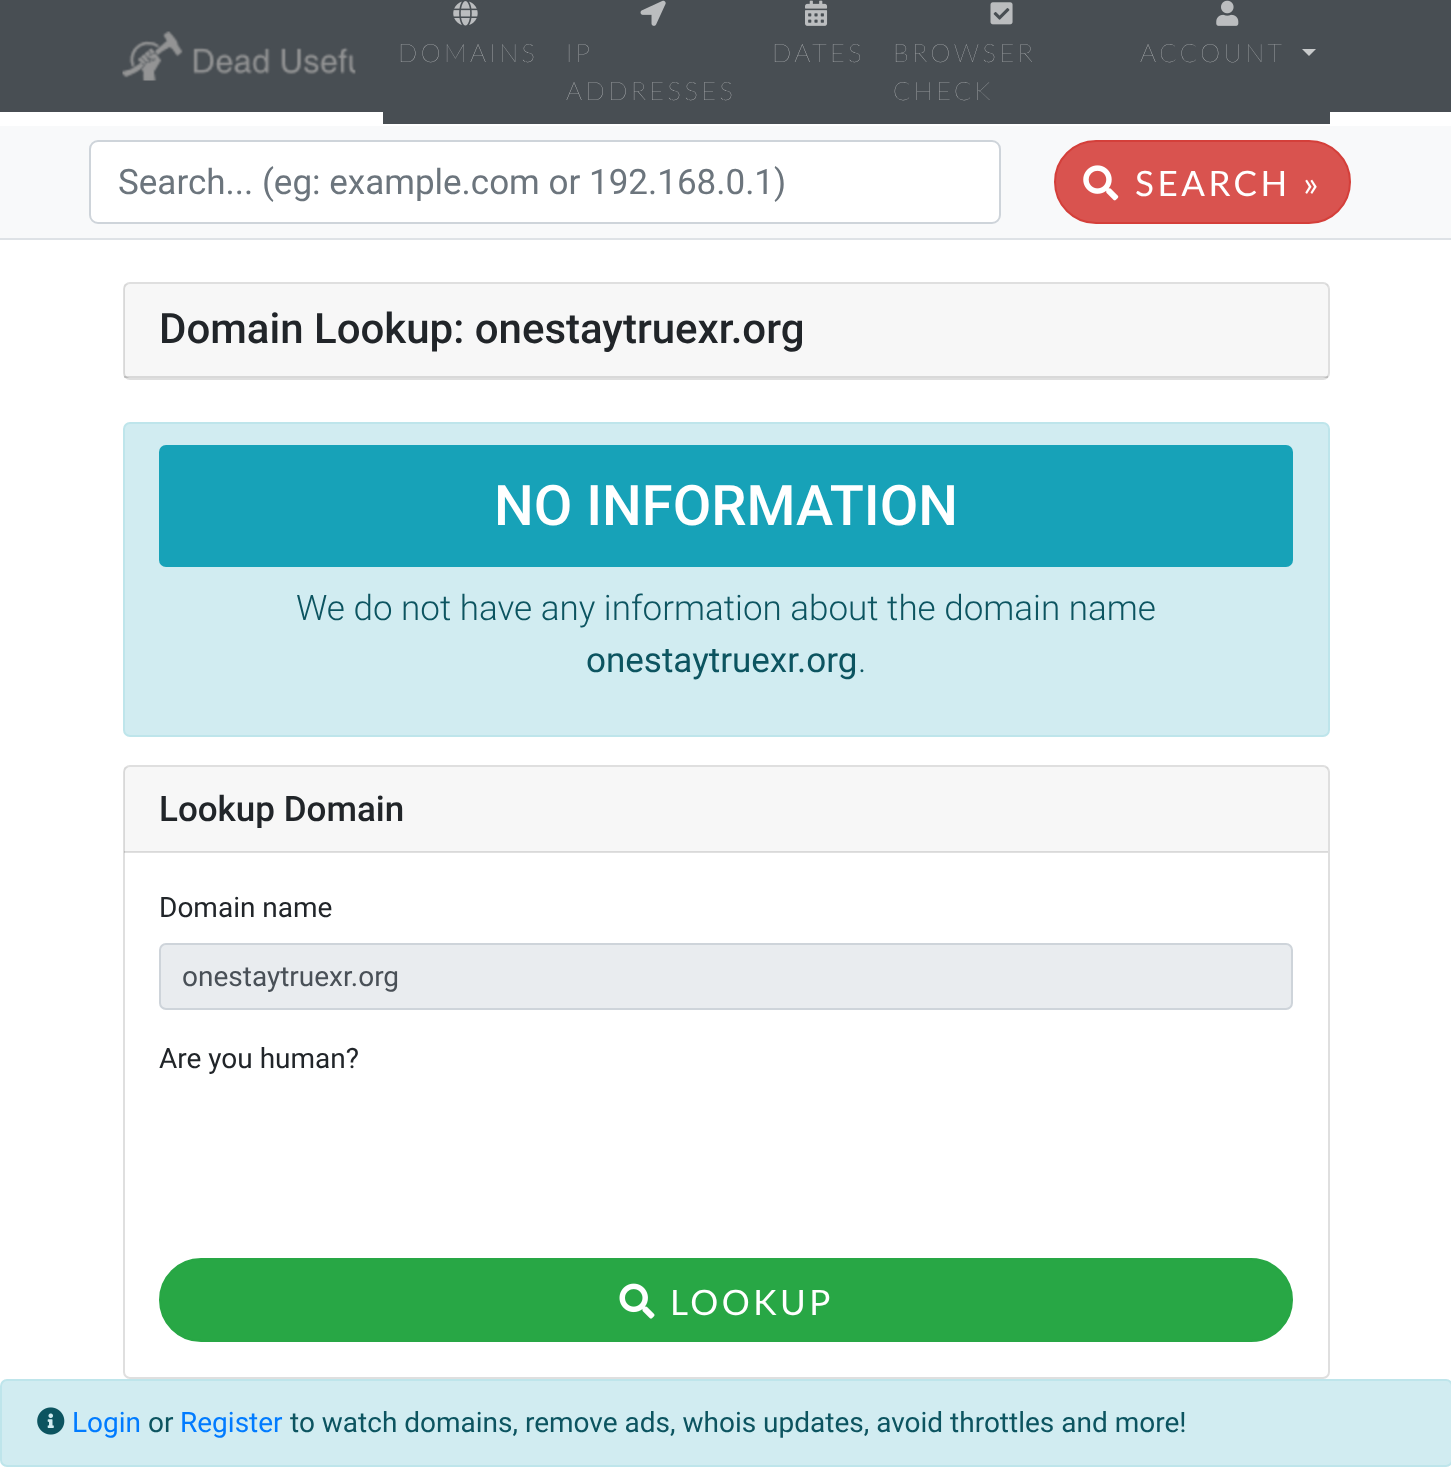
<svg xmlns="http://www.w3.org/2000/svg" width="1451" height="1472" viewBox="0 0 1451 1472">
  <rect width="100%" height="100%" fill="#fff"/>
  <path d="M0 0h1451v112H0z" fill="#484e53"/>
  <image x="122" y="31" width="234" height="50" href="img/1.png"/>
  <path d="M383 112h947v12H383z" fill="#484e53"/>
  <image x="453" y="1" width="25" height="25" href="img/2.png"/>
  <image x="640" y="0" width="26" height="26" href="img/3.png"/>
  <image x="805" y="0" width="23" height="26" href="img/4.png"/>
  <image x="990" y="2" width="23" height="23" href="img/5.png"/>
  <image x="1216" y="0" width="23" height="26" href="img/6.png"/>
  <path d="M1302 49H1316L1309 56Z" fill="#c8cacb"/>
  <path d="M0 126h1451v112H0z" fill="#f8f9fa"/>
  <path d="M0 238h1451v2H0z" fill="#dee2e6"/>
  <rect x="90" y="141" width="910" height="82" rx="8" fill="#fff" stroke="#ced4da" stroke-width="2"/>
  <rect x="1055" y="141" width="295" height="82" rx="41" fill="#d9534f" stroke="#d43f3a" stroke-width="2"/>
  <image x="1083" y="165" width="36" height="36" href="img/7.png"/>
  <rect x="124" y="283" width="1205" height="96" rx="6" fill="none" stroke="#dfdfdf" stroke-width="2"/>
  <path d="M124 284h1204v94H124z" fill="#00000008"/>
  <path d="M124 376h1204v2H124z" fill="#0000001f"/>
  <rect x="124" y="423" width="1205" height="313" rx="6" fill="#d1ecf1" stroke="#bee5eb" stroke-width="2"/>
  <rect x="159" y="445" width="1134" height="122" rx="7" fill="#17a2b8"/>
  <rect x="124" y="766" width="1205" height="612" rx="6" fill="none" stroke="#dfdfdf" stroke-width="2"/>
  <path d="M124 767h1204v85H124z" fill="#00000008"/>
  <path d="M124 851h1204v2H124z" fill="#0000001f"/>
  <rect x="160" y="944" width="1132" height="65" rx="6" fill="#e9ecef" stroke="#ced4da" stroke-width="2"/>
  <rect x="160" y="1259" width="1132" height="82" rx="41" fill="#28a745" stroke="#28a745" stroke-width="2"/>
  <image x="619" y="1283" width="36" height="36" href="img/8.png"/>
  <rect x="1" y="1380" width="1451" height="86" rx="6" fill="#d1ecf1" stroke="#bee5eb" stroke-width="2"/>
  <image x="37" y="1407" width="28" height="28" href="img/9.png"/>
  <g font-family="Lato" font-size="25.25" font-weight="200" letter-spacing="3.5" fill="#c8cacb">
    <text x="398" y="62">DOMAINS</text>
    <text x="566" y="62">IP</text>
    <text x="566" y="100">ADDRESSES</text>
    <text x="772" y="62">DATES</text>
    <text x="893" y="62">BROWSER</text>
    <text x="893" y="100">CHECK</text>
    <text x="1140" y="62">ACCOUNT</text>
  </g>
  <text x="118" y="194" font-family="Roboto" font-size="35" fill="#6c757d">Search... (eg: example.com or 192.168.0.1)</text>
  <text x="1135" y="196" font-family="Lato" font-size="35" letter-spacing="3.5" fill="#fff">SEARCH »</text>
  <text x="159" y="343" font-family="Roboto" font-size="42" font-weight="500" fill="#212529">Domain Lookup: onestaytruexr.org</text>
  <text x="494" y="525" font-family="Roboto" font-size="56" font-weight="500" fill="#fff">NO INFORMATION</text>
  <text x="296" y="620" font-family="Roboto" font-size="35" font-weight="300" fill="#0c5460">We do not have any information about the domain name</text>
  <text x="586" y="672" font-family="Roboto" font-size="35" fill="#0c5460">onestaytruexr.org</text>
  <text x="858" y="672" font-family="Roboto" font-size="35" font-weight="300" fill="#0c5460">.</text>
  <text x="159" y="821" font-family="Roboto" font-size="35" font-weight="500" fill="#212529">Lookup Domain</text>
  <text x="159" y="917" font-family="Roboto" font-size="28" fill="#212529">Domain name</text>
  <text x="182" y="986" font-family="Roboto" font-size="28" fill="#495057">onestaytruexr.org</text>
  <text x="159" y="1068" font-family="Roboto" font-size="28" fill="#212529">Are you human?</text>
  <text x="670" y="1315" font-family="Lato" font-size="35" letter-spacing="3.5" fill="#fff">LOOKUP</text>
  <text x="72" y="1432" font-family="Roboto" font-size="28" fill="#007bff">Login</text>
  <text x="148" y="1432" font-family="Roboto" font-size="28" fill="#0c5460">or</text>
  <text x="180" y="1432" font-family="Roboto" font-size="28" fill="#007bff">Register</text>
  <text x="290" y="1432" font-family="Roboto" font-size="28" fill="#0c5460">to watch domains, remove ads, whois updates, avoid throttles and more!</text>
</svg>
